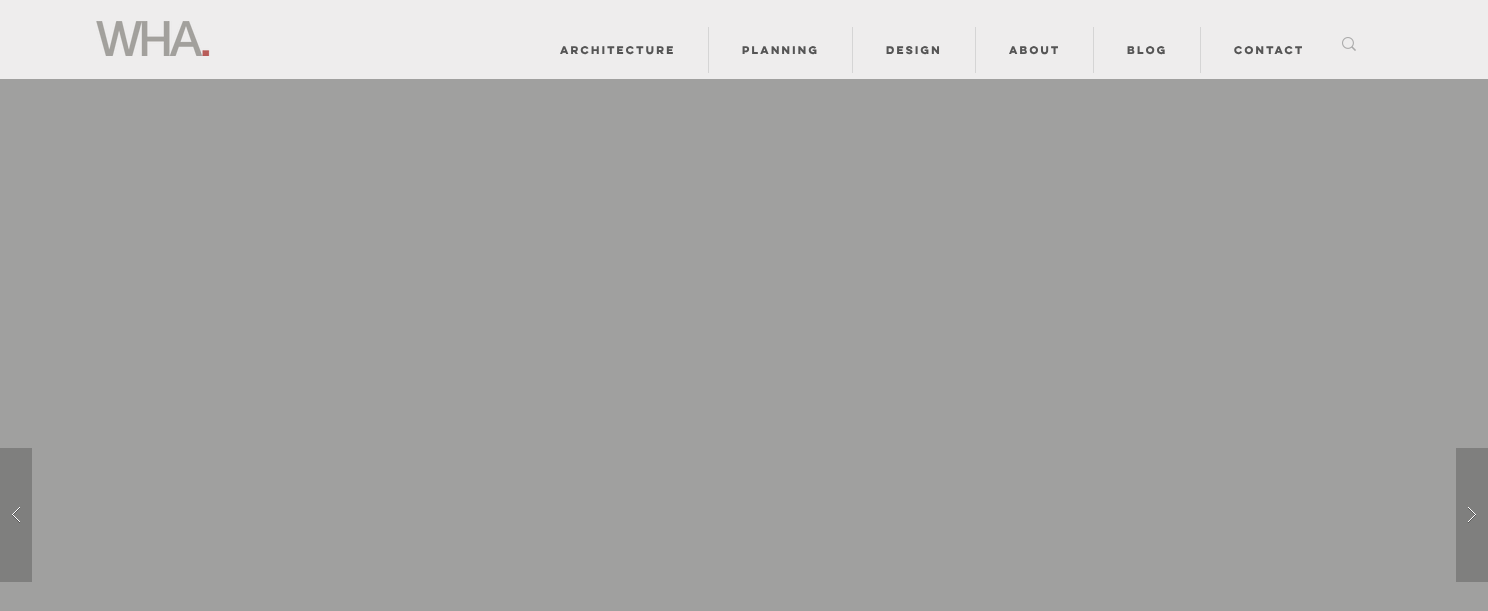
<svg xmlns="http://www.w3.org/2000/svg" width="1488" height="611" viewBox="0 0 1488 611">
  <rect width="100%" height="100%" fill="#a0a09f"/>
  <path d="M0 0h1488v79H0z" fill="#eeeded"/>
  <image x="96" y="21" width="114" height="35" href="img/1.png"/>
  <path d="M708 27h1v46H708z" fill="#d5d5d5"/>
  <path d="M852 27h1v46H852z" fill="#d5d5d5"/>
  <path d="M975 27h1v46H975z" fill="#d5d5d5"/>
  <path d="M1093 27h1v46H1093z" fill="#d5d5d5"/>
  <path d="M1200 27h1v46H1200z" fill="#d5d5d5"/>
  <image x="1342" y="37" width="14" height="14" href="img/2.png"/>
  <path d="M0 448h32v134H0z" fill="#7f7f7e"/>
  <image x="12" y="507" width="8" height="16" href="img/3.png"/>
  <path d="M1456 448h32v134H1456z" fill="#7f7f7e"/>
  <image x="1468" y="507" width="8" height="16" href="img/4.png"/>
  <g font-family="'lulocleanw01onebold'" font-size="10" font-weight="bold" fill="#555">
    <text x="560" y="54">ARCHITECTURE</text>
    <text x="742" y="54">PLANNING</text>
    <text x="886" y="54">DESIGN</text>
    <text x="1009" y="54">ABOUT</text>
    <text x="1127" y="54">BLOG</text>
    <text x="1234" y="54">CONTACT</text>
  </g>
</svg>
